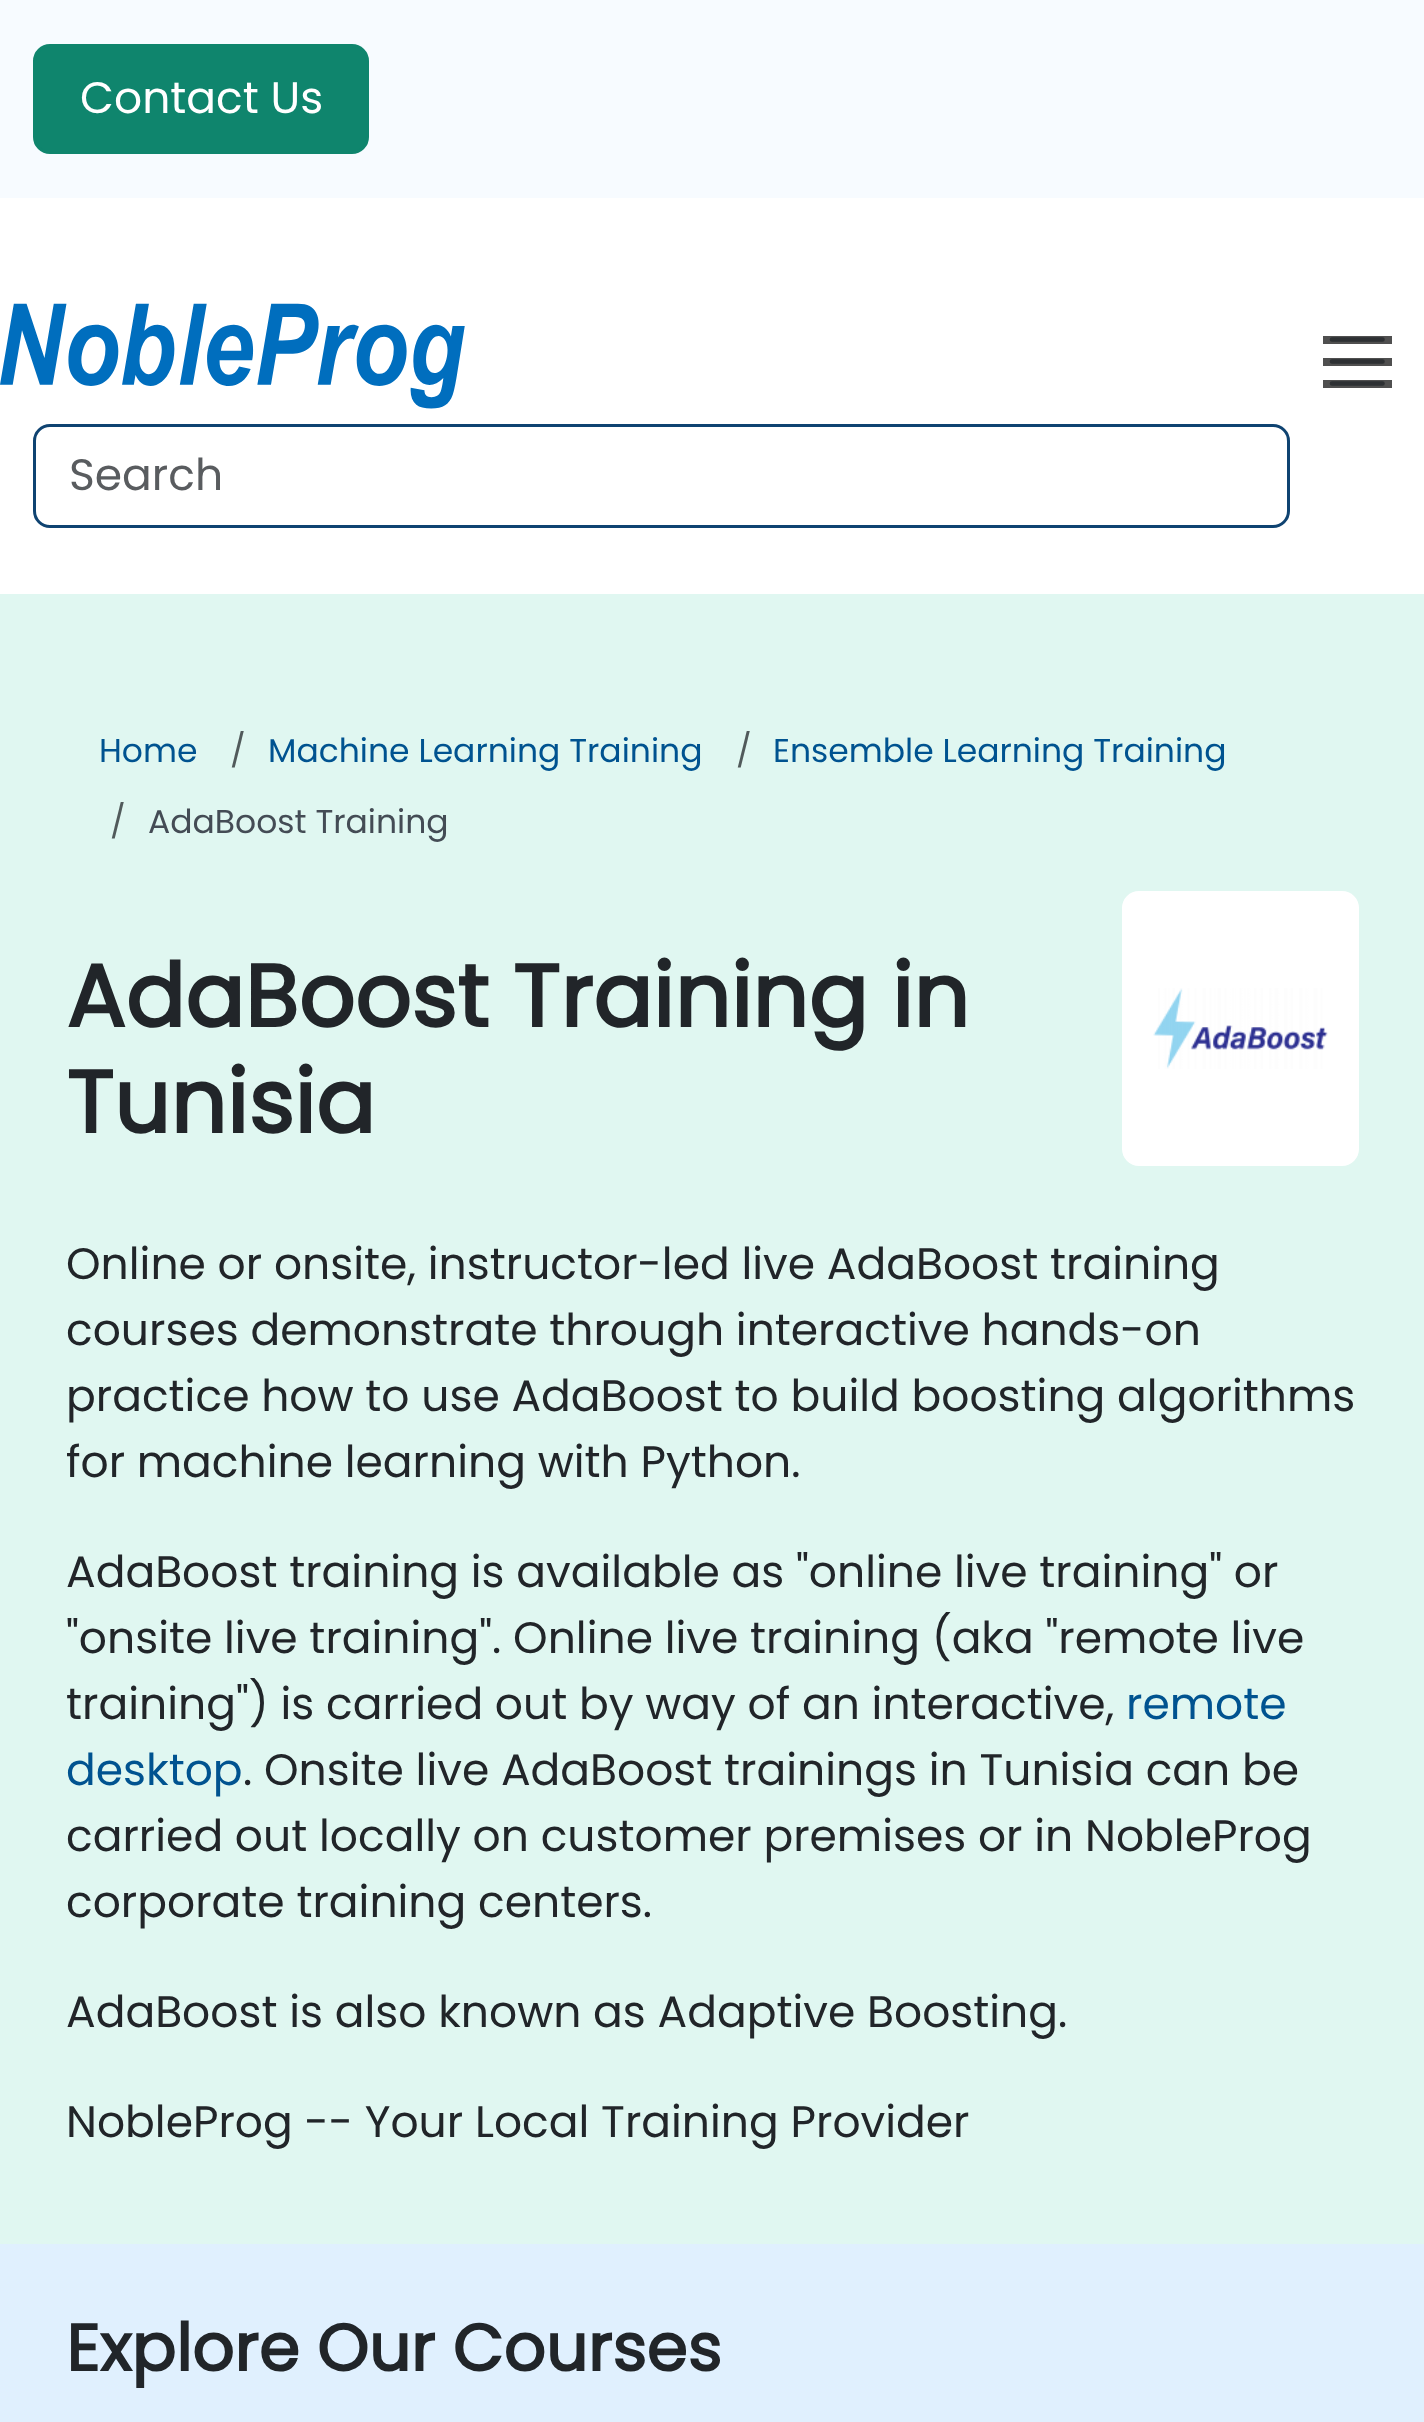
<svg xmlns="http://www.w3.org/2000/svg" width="1424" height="2422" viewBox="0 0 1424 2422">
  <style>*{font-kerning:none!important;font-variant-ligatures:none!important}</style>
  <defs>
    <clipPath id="clip1"><path d="M1323 336h69v8H1323z"/></clipPath>
    <clipPath id="clip2"><path d="M1323 358h69v8H1323z"/></clipPath>
    <clipPath id="clip3"><path d="M1323 380h69v8H1323z"/></clipPath>
  </defs>
  <rect width="100%" height="100%" fill="#fff"/>
  <path d="M0 0h1424v198H0z" fill="#f7fbff"/>
  <rect x="34.5" y="45.5" width="333" height="107" rx="15.5" fill="#0f856d" stroke="#0f856d" stroke-width="3"/>
  <path d="M1323 336h69v8H1323z" fill="#4f4f4f"/>
  <g clip-path="url(#clip1)">
    <path d="M1332 321.5H1382.5M1332 339.5H1382.5M1332 358H1382.5" fill="none" stroke="#2d3033" stroke-width="4.6" stroke-linecap="round"/>
  </g>
  <path d="M1323 358h69v8H1323z" fill="#4f4f4f"/>
  <g clip-path="url(#clip2)">
    <path d="M1332 343.5H1382.5M1332 361.5H1382.5M1332 380H1382.5" fill="none" stroke="#2d3033" stroke-width="4.6" stroke-linecap="round"/>
  </g>
  <path d="M1323 380h69v8H1323z" fill="#4f4f4f"/>
  <g clip-path="url(#clip3)">
    <path d="M1332 365.5H1382.5M1332 383.5H1382.5M1332 402H1382.5" fill="none" stroke="#2d3033" stroke-width="4.6" stroke-linecap="round"/>
  </g>
  <image x="0" y="303" width="465" height="106" href="img/1.png"/>
  <rect x="34.5" y="425.5" width="1254" height="101" rx="15.5" fill="none" stroke="#0f4371" stroke-width="3"/>
  <path d="M0 594h1424v1650H0z" fill="#e0f7f1"/>
  <rect x="1122" y="891" width="237" height="275" rx="17" fill="#fff"/>
  <image x="1153" y="988" width="175" height="81" href="img/2.png"/>
  <path d="M0 2244h1424v178H0z" fill="#e0f0fe"/>
  <text x="80" y="113" font-family="Poppins" font-size="44" fill="#fff">Contact Us</text>
  <text x="69" y="490" font-family="Poppins" font-size="44" fill="#595c5f">Search</text>
  <text x="99" y="762" font-family="Poppins" font-size="33" fill="#005390">Home</text>
  <text x="230" y="762" font-family="Poppins" font-size="33" fill="#515a5b">/</text>
  <text x="268" y="762" font-family="Poppins" font-size="33" fill="#005390">Machine Learning Training</text>
  <text x="736" y="762" font-family="Poppins" font-size="33" fill="#515a5b">/</text>
  <text x="773" y="762" font-family="Poppins" font-size="33" fill="#005390">Ensemble Learning Training</text>
  <text x="110" y="833" font-family="Poppins" font-size="33" fill="#515a5b">/</text>
  <text x="148" y="833" font-family="Poppins" font-size="33" fill="#444c55">AdaBoost Training</text>
  <g font-family="Poppins" font-size="88" font-weight="bold" fill="#212529">
    <text x="66" y="1027">AdaBoost Training in</text>
    <text x="66" y="1133">Tunisia</text>
  </g>
  <g font-family="Poppins" font-size="44" fill="#212529">
    <text x="66" y="1279">Online or onsite, instructor-led live AdaBoost training</text>
    <text x="66" y="1345">courses demonstrate through interactive hands-on</text>
    <text x="66" y="1411">practice how to use AdaBoost to build boosting algorithms</text>
    <text x="66" y="1477">for machine learning with Python.</text>
    <text x="66" y="1587">AdaBoost training is available as "online live training" or</text>
    <text x="66" y="1653">"onsite live training". Online live training (aka "remote live</text>
    <text x="66" y="1719">training") is carried out by way of an interactive,</text>
  </g>
  <g font-family="Poppins" font-size="44" fill="#005390">
    <text x="1126" y="1719">remote</text>
    <text x="66" y="1785">desktop</text>
  </g>
  <g font-family="Poppins" font-size="44" fill="#212529">
    <text x="243" y="1785">. Onsite live AdaBoost trainings in Tunisia can be</text>
    <text x="66" y="1851">carried out locally on customer premises or in NobleProg</text>
    <text x="66" y="1917">corporate training centers.</text>
    <text x="66" y="2027">AdaBoost is also known as Adaptive Boosting.</text>
    <text x="66" y="2137">NobleProg -- Your Local Training Provider</text>
  </g>
  <text x="66" y="2371" font-family="Poppins" font-size="65.75" font-weight="bold" fill="#212529">Explore Our Courses</text>
</svg>
